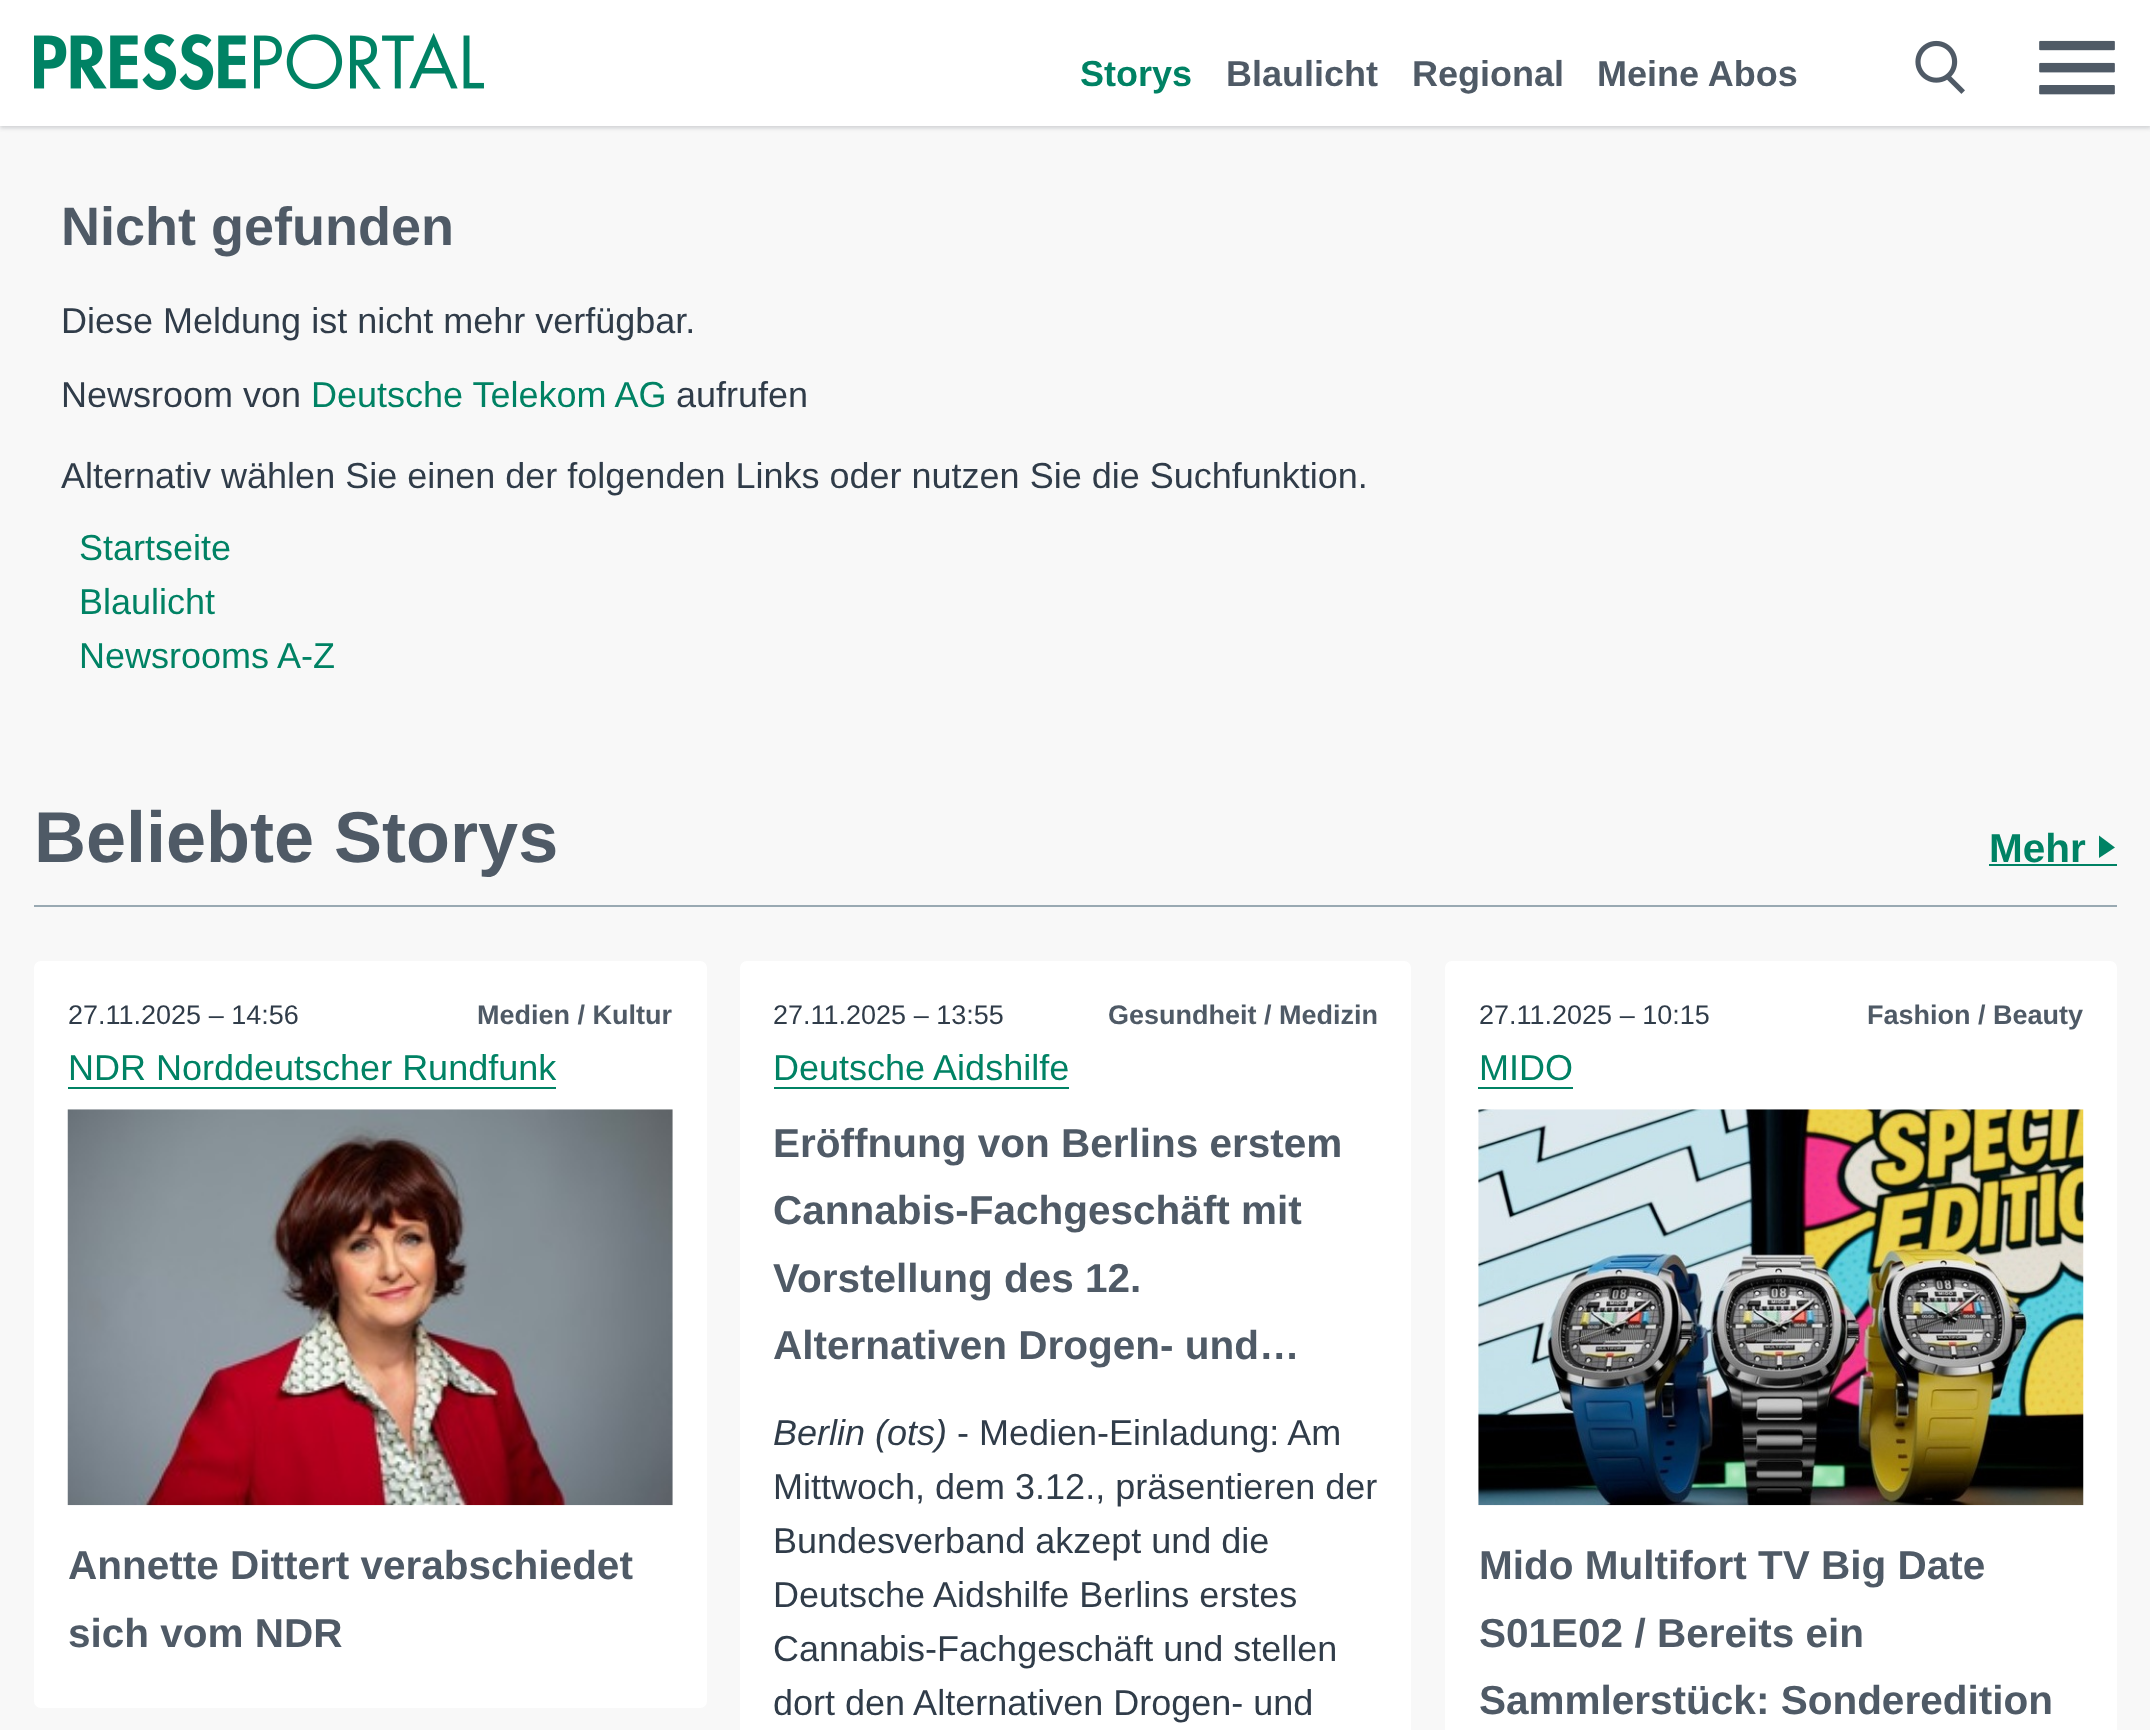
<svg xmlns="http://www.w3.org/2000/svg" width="2150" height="1730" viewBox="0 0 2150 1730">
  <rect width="100%" height="100%" fill="#f8f8f8"/>
  <path d="M0 2h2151v126H0z" fill="#4f5a6629" filter="blur(2px)"/>
  <path d="M0 2h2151v126H0z" fill="#4f5a661a" filter="blur(2px)"/>
  <path d="M0 0h2150v126H0z" fill="#fff"/>
  <image x="34" y="33" width="450" height="57" href="img/1.png"/>
  <image x="1915" y="40" width="50" height="54" href="img/2.png"/>
  <image x="2039" y="40" width="76" height="55" href="img/3.png"/>
  <path d="M34 905h2083v2H34z" fill="#99a9b2"/>
  <path d="M1989 864h128v2H1989z" fill="#008264"/>
  <path d="M2099 858V835.5L2115 847.5Z" fill="#008264"/>
  <rect x="34" y="961" width="673" height="747" rx="7" fill="#fff"/>
  <path d="M68 1087h488v2H68z" fill="#008264"/>
  <image x="67" y="1109" width="606" height="397" href="img/4.png"/>
  <rect x="740" y="961" width="671" height="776" rx="7" fill="#fff"/>
  <path d="M774 1087h295v2H774z" fill="#008264"/>
  <rect x="1445" y="961" width="672" height="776" rx="7" fill="#fff"/>
  <path d="M1478 1087h95v2H1478z" fill="#008264"/>
  <image x="1478" y="1109" width="606" height="397" href="img/5.png"/>
  <text x="1080" y="86" font-family="Liberation Sans" font-size="36" font-weight="bold" fill="#008264">Storys</text>
  <g font-family="Liberation Sans" font-size="36" font-weight="bold" fill="#4f5a66">
    <text x="1226" y="86">Blaulicht</text>
    <text x="1412" y="86">Regional</text>
    <text x="1597" y="86">Meine Abos</text>
  </g>
  <text x="61" y="245" font-family="Liberation Sans" font-size="54" font-weight="bold" fill="#4f5a66">Nicht gefunden</text>
  <g font-family="Liberation Sans" font-size="36" fill="#303c49">
    <text x="61" y="333">Diese Meldung ist nicht mehr verfügbar.</text>
    <text x="61" y="407">Newsroom von</text>
  </g>
  <text x="311" y="407" font-family="Liberation Sans" font-size="36" fill="#008264">Deutsche Telekom AG</text>
  <g font-family="Liberation Sans" font-size="36" fill="#303c49">
    <text x="676" y="407">aufrufen</text>
    <text x="61" y="488">Alternativ wählen Sie einen der folgenden Links oder nutzen Sie die Suchfunktion.</text>
  </g>
  <g font-family="Liberation Sans" font-size="36" fill="#008264">
    <text x="79" y="560">Startseite</text>
    <text x="79" y="614">Blaulicht</text>
    <text x="79" y="668">Newsrooms A-Z</text>
  </g>
  <text x="34" y="862" font-family="Liberation Sans" font-size="72" font-weight="bold" fill="#4f5a66">Beliebte Storys</text>
  <text x="1989" y="862" font-family="Liberation Sans" font-size="40.5" font-weight="bold" fill="#008264">Mehr</text>
  <text x="68" y="1024" font-family="Liberation Sans" font-size="27" fill="#303c49">27.11.2025 – 14:56</text>
  <text x="477" y="1024" font-family="Liberation Sans" font-size="27" font-weight="bold" fill="#4f5a66">Medien / Kultur</text>
  <text x="68" y="1080" font-family="Liberation Sans" font-size="36" fill="#008264">NDR Norddeutscher Rundfunk</text>
  <g font-family="Liberation Sans" font-size="40.5" font-weight="bold" fill="#4f5a66">
    <text x="68" y="1579">Annette Dittert verabschiedet</text>
    <text x="68" y="1647">sich vom NDR</text>
  </g>
  <text x="773" y="1024" font-family="Liberation Sans" font-size="27" fill="#303c49">27.11.2025 – 13:55</text>
  <text x="1108" y="1024" font-family="Liberation Sans" font-size="27" font-weight="bold" fill="#4f5a66">Gesundheit / Medizin</text>
  <text x="773" y="1080" font-family="Liberation Sans" font-size="36" fill="#008264">Deutsche Aidshilfe</text>
  <g font-family="Liberation Sans" font-size="40.5" font-weight="bold" fill="#4f5a66">
    <text x="773" y="1157">Eröffnung von Berlins erstem</text>
    <text x="773" y="1224">Cannabis-Fachgeschäft mit</text>
    <text x="773" y="1292">Vorstellung des 12.</text>
    <text x="773" y="1359">Alternativen Drogen- und…</text>
  </g>
  <text x="773" y="1445" font-family="Liberation Sans" font-size="36" font-style="italic" fill="#303c49">Berlin (ots)</text>
  <g font-family="Liberation Sans" font-size="36" fill="#303c49">
    <text x="957" y="1445">- Medien-Einladung: Am</text>
    <text x="773" y="1499">Mittwoch, dem 3.12., präsentieren der</text>
    <text x="773" y="1553">Bundesverband akzept und die</text>
    <text x="773" y="1607">Deutsche Aidshilfe Berlins erstes</text>
    <text x="773" y="1661">Cannabis-Fachgeschäft und stellen</text>
    <text x="773" y="1715">dort den Alternativen Drogen- und</text>
  </g>
  <text x="1479" y="1024" font-family="Liberation Sans" font-size="27" fill="#303c49">27.11.2025 – 10:15</text>
  <text x="1867" y="1024" font-family="Liberation Sans" font-size="27" font-weight="bold" fill="#4f5a66">Fashion / Beauty</text>
  <text x="1479" y="1080" font-family="Liberation Sans" font-size="36" fill="#008264">MIDO</text>
  <g font-family="Liberation Sans" font-size="40.5" font-weight="bold" fill="#4f5a66">
    <text x="1479" y="1579">Mido Multifort TV Big Date</text>
    <text x="1479" y="1647">S01E02 / Bereits ein</text>
    <text x="1479" y="1714">Sammlerstück: Sonderedition</text>
  </g>
</svg>
